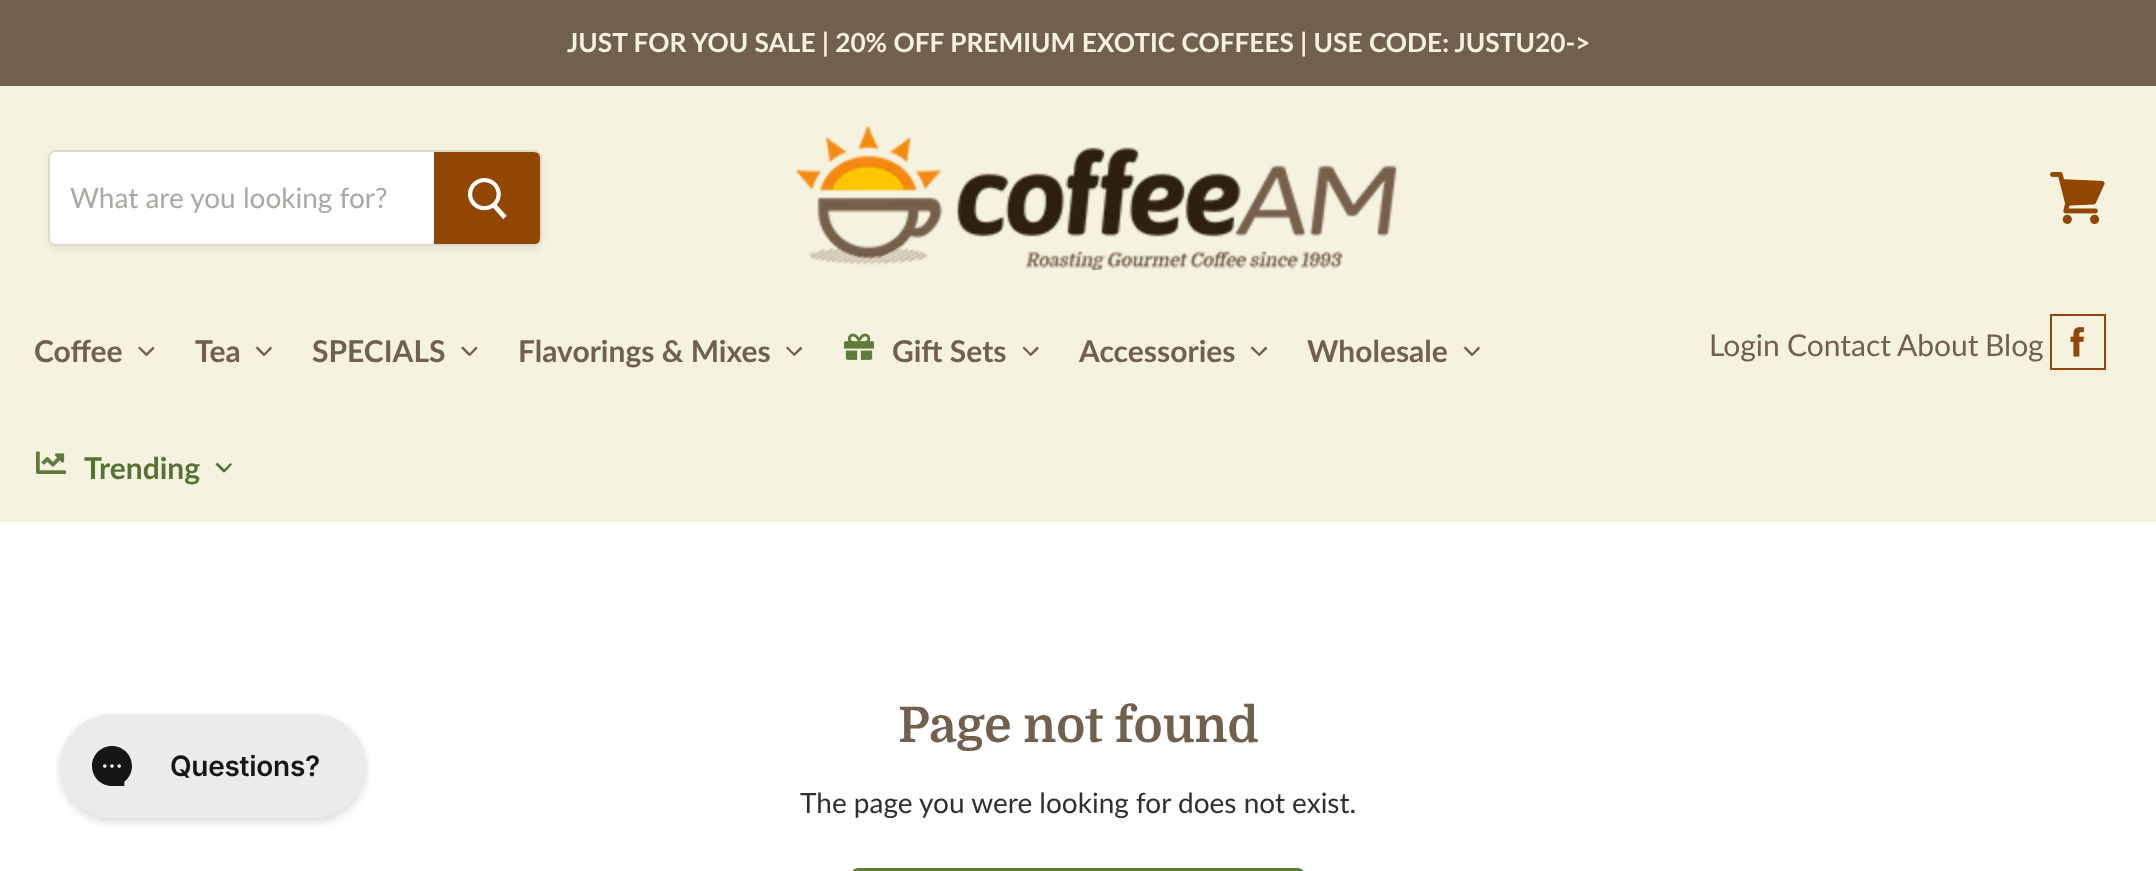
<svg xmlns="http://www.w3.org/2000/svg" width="2156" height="871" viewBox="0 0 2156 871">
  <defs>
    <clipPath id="clip1"><path d="M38 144H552V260H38ZM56 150H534C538.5 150 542 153.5 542 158V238C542 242.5 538.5 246 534 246H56C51.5 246 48 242.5 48 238V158C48 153.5 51.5 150 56 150Z" clip-rule="evenodd"/></clipPath>
  </defs>
  <rect width="100%" height="100%" fill="#fff"/>
  <path d="M0 0h2156v86H0z" fill="#70604d"/>
  <path d="M0 86h2156v436H0z" fill="#f5f2e0"/>
  <g clip-path="url(#clip1)">
    <rect x="48" y="154" width="494" height="96" rx="8" fill="#7f7f7f1c" filter="blur(3px)"/>
  </g>
  <rect x="49" y="151" width="492" height="94" rx="7" fill="none" stroke="#7f7f7f33" stroke-width="2"/>
  <path d="M56 152H434V244H56C52.5 244 50 241.5 50 238V158C50 154.5 52.5 152 56 152Z" fill="#fff"/>
  <path d="M435 153H534C537 153 539 155 539 158V238C539 241 537 243 534 243H435Z" fill="#914701" stroke="#914701" stroke-width="2"/>
  <image x="468" y="178" width="39" height="41" href="img/1.png"/>
  <image x="796" y="126" width="601" height="144" href="img/2.png"/>
  <image x="2050" y="172" width="55" height="52" href="img/3.png"/>
  <path d="M153 346.5L154.5 348.5L147 356L145 354.5Z" fill="#70604d"/>
  <path d="M139.5 346.5L148 354.5L146 356L138 348Z" fill="#70604d"/>
  <path d="M270.5 346.5L272 348.5L264.5 356L263 354.5Z" fill="#70604d"/>
  <path d="M257.5 346.5L265.5 354.5L263.5 356L255.5 348Z" fill="#70604d"/>
  <path d="M476 346.5L477.5 348.5L470 356L468.5 354.5Z" fill="#70604d"/>
  <path d="M463 346.5L471 354.5L469 356L461 348Z" fill="#70604d"/>
  <path d="M800.5 346.5L802.5 348.5L794.5 356L793 354.5Z" fill="#70604d"/>
  <path d="M787.5 346.5L795.5 354.5L794 356L786 348Z" fill="#70604d"/>
  <image x="844" y="333" width="30" height="27" href="img/4.png"/>
  <path d="M1037 346.5L1039 348.5L1031 356L1029.5 354.5Z" fill="#70604d"/>
  <path d="M1024 346.5L1032 354.5L1030.5 356L1022.5 348Z" fill="#70604d"/>
  <path d="M1265.5 346.5L1267.5 348.5L1259.5 356L1258 354.5Z" fill="#70604d"/>
  <path d="M1252.5 346.5L1260.5 354.5L1259 356L1250.5 348Z" fill="#70604d"/>
  <path d="M1478.5 346.5L1480 348.5L1472.5 356L1471 354.5Z" fill="#70604d"/>
  <path d="M1465.5 346.5L1473.5 354.5L1471.5 356L1463.5 348Z" fill="#70604d"/>
  <image x="36" y="451" width="30" height="23" href="img/5.png"/>
  <path d="M230.5 463L232 464.5L224.5 472.5L223 470.5Z" fill="#567235"/>
  <path d="M217.5 462.5L225.5 470.5L223.5 472.5L215.5 464.5Z" fill="#567235"/>
  <path d="M2051 315h54v54H2051z" fill="none" stroke="#91470b" stroke-width="2"/>
  <image x="2070" y="327" width="14" height="30" href="img/6.png"/>
  <image x="56" y="713" width="314" height="114" href="img/7.png"/>
  <rect x="853" y="869" width="450" height="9" rx="5" fill="#5b7d33" stroke="#5b7d33" stroke-width="2"/>
  <text x="567" y="52" font-family="Lato" font-size="26.25" font-weight="bold" fill="#f5f2e0">JUST FOR YOU SALE | 20% OFF PREMIUM EXOTIC COFFEES | USE CODE: JUSTU20-&gt;</text>
  <text x="70" y="208" font-family="Lato" font-size="28" fill="#aba8a3">What are you looking for?</text>
  <g font-family="Lato" font-size="30" font-weight="bold" fill="#70604d">
    <text x="34" y="362">Coffee</text>
    <text x="195" y="362">Tea</text>
    <text x="312" y="362">SPECIALS</text>
    <text x="518" y="362">Flavorings &amp; Mixes</text>
    <text x="892" y="362">Gift Sets</text>
    <text x="1079" y="362">Accessories</text>
    <text x="1307" y="362">Wholesale</text>
  </g>
  <text x="84" y="479" font-family="Lato" font-size="30" font-weight="bold" fill="#567235">Trending</text>
  <g font-family="Lato" font-size="30" fill="#70604d">
    <text x="1709" y="356">Login</text>
    <text x="1787" y="356">Contact</text>
    <text x="1897" y="356">About</text>
    <text x="1985" y="356">Blog</text>
  </g>
  <text x="898" y="742" font-family="Domine" font-size="49" font-weight="bold" fill="#70604d">Page not found</text>
  <text x="800" y="813" font-family="Lato" font-size="28" fill="#2f2f2f">The page you were looking for does not exist.</text>
</svg>
